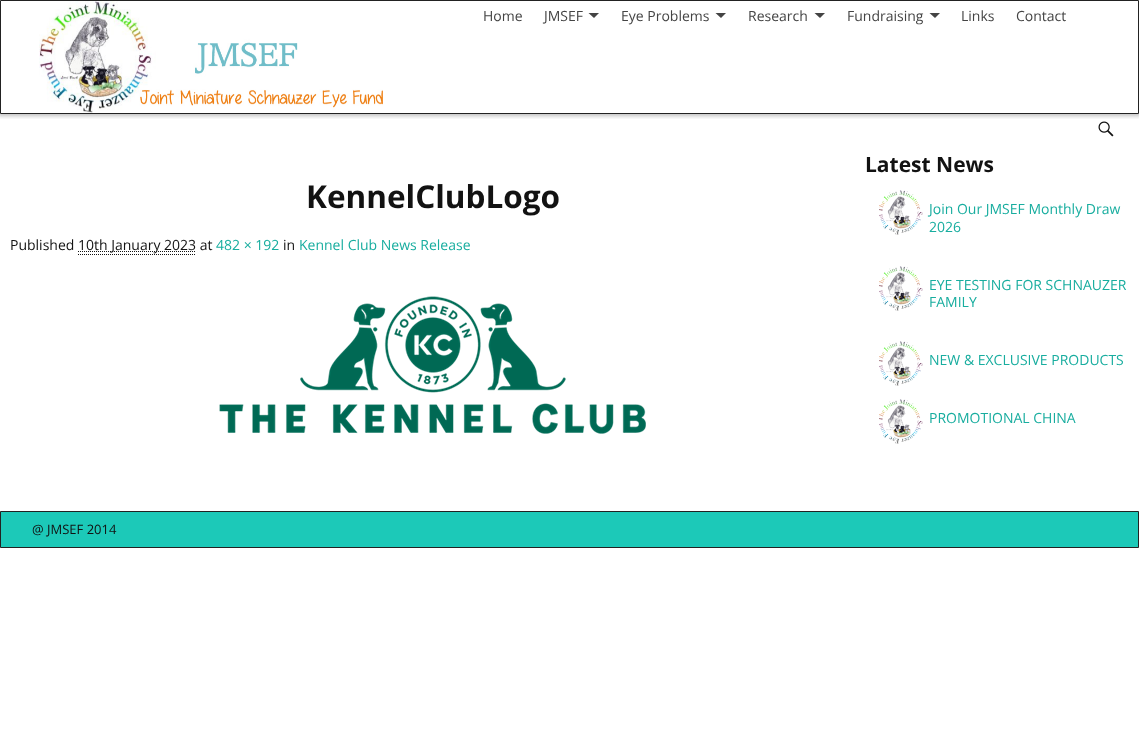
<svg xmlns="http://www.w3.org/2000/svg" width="1139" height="748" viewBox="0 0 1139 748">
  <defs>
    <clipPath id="clip1"><path d="M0 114h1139v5H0z"/></clipPath>
  </defs>
  <rect width="100%" height="100%" fill="#fff"/>
  <image x="1098" y="121" width="16" height="16" href="img/2.png"/>
  <g clip-path="url(#clip1)">
    <path d="M-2 -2h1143v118H-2z" fill="#00000040" filter="blur(2px)"/>
  </g>
  <path d="M0.5 0.5h1138v113H0.5z" fill="none" stroke="#222"/>
  <image x="39" y="1" width="344" height="112" href="img/1.png"/>
  <path d="M588.5 13H599L594 18Z" fill="#444"/>
  <path d="M715.5 13H726L721 18Z" fill="#444"/>
  <path d="M814.5 13H825L820 18Z" fill="#444"/>
  <path d="M929.5 13H940L935 18Z" fill="#444"/>
  <path d="M78 254.5H196" fill="none" stroke="#121212" stroke-dasharray="1 1"/>
  <path d="M78 251.5H196" fill="none" stroke="#121212" stroke-dasharray="1 1"/>
  <image x="219" y="296" width="427" height="138" href="img/3.png"/>
  <image x="879" y="190" width="44" height="45" href="img/4.png"/>
  <image x="879" y="266" width="44" height="45" href="img/4.png"/>
  <image x="879" y="341" width="44" height="45" href="img/4.png"/>
  <image x="879" y="399" width="44" height="45" href="img/4.png"/>
  <path d="M0.5 511.5h1138v36H0.5z" fill="#1cc9b8" stroke="#222"/>
  <g font-family="Open Sans" font-size="14" fill="#444">
    <text x="483" y="21">Home</text>
    <text x="544" y="21">JMSEF</text>
    <text x="621" y="21">Eye Problems</text>
    <text x="748" y="21">Research</text>
    <text x="847" y="21">Fundraising</text>
    <text x="961" y="21">Links</text>
    <text x="1016" y="21">Contact</text>
  </g>
  <text x="306" y="208" font-family="Open Sans" font-size="31.5" font-weight="bold" fill="#121212">KennelClubLogo</text>
  <g font-family="Open Sans" font-size="14" fill="#121212">
    <text x="10" y="250">Published</text>
    <text x="78" y="250">10th January 2023 at</text>
  </g>
  <text x="216" y="250" font-family="Open Sans" font-size="14" fill="#18ad9f">482 × 192</text>
  <text x="283" y="250" font-family="Open Sans" font-size="14" fill="#121212">in</text>
  <text x="299" y="250" font-family="Open Sans" font-size="14" fill="#18ad9f">Kennel Club News Release</text>
  <text x="865" y="172" font-family="Open Sans" font-size="21" font-weight="bold" fill="#121212">Latest News</text>
  <g font-family="Open Sans" font-size="14" fill="#18ad9f">
    <text x="929" y="214">Join Our JMSEF Monthly Draw</text>
    <text x="929" y="232">2026</text>
    <text x="929" y="290">EYE TESTING FOR SCHNAUZER</text>
    <text x="929" y="307">FAMILY</text>
    <text x="929" y="365">NEW &amp; EXCLUSIVE PRODUCTS</text>
    <text x="929" y="423">PROMOTIONAL CHINA</text>
  </g>
  <text x="32" y="534" font-family="Open Sans" font-size="13" fill="#121212">@ JMSEF 2014</text>
</svg>
